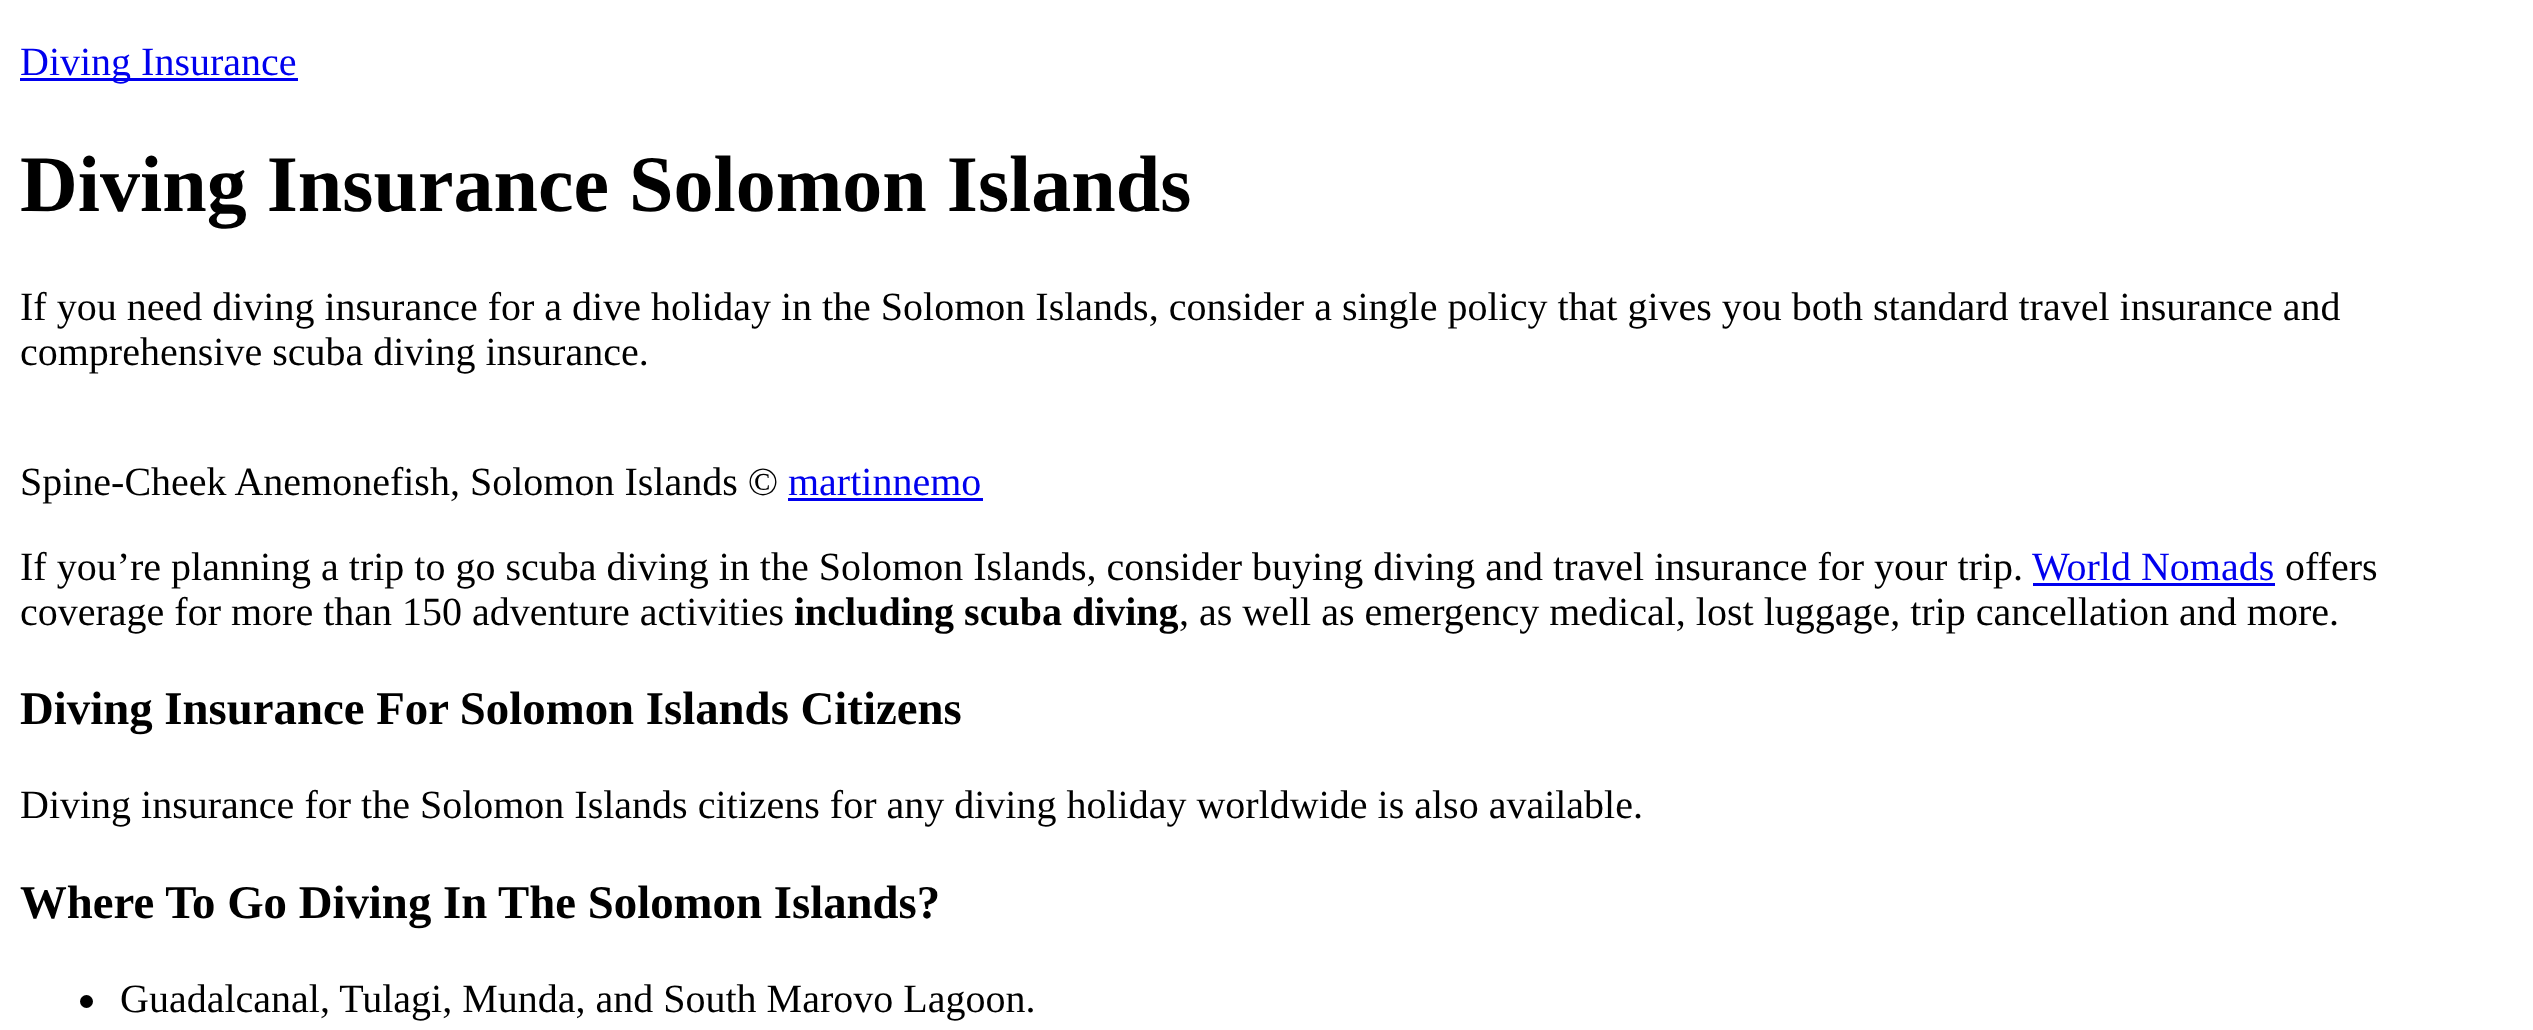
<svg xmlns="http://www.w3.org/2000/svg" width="2533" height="1030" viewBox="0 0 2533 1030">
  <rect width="100%" height="100%" fill="#fff"/>
  <path d="M20 78h278v3H20z" fill="#00e"/>
  <path d="M788 498h195v3H788z" fill="#00e"/>
  <path d="M2033 583h242v3H2033z" fill="#00e"/>
  <circle cx="86.5" cy="1001.5" r="6.5" fill="#000"/>
  <text x="20" y="75" font-family="Liberation Serif" font-size="40" fill="#00e">Diving Insurance</text>
  <text x="20" y="211" font-family="Liberation Serif" font-size="80" font-weight="bold" fill="#000">Diving Insurance Solomon Islands</text>
  <g font-family="Liberation Serif" font-size="40" fill="#000">
    <text x="20" y="320">If you need diving insurance for a dive holiday in the Solomon Islands, consider a single policy that gives you both standard travel insurance and</text>
    <text x="20" y="365">comprehensive scuba diving insurance.</text>
    <text x="20" y="495">Spine-Cheek Anemonefish, Solomon Islands ©</text>
  </g>
  <text x="788" y="495" font-family="Liberation Serif" font-size="40" fill="#00e">martinnemo</text>
  <text x="20" y="580" font-family="Liberation Serif" font-size="40" fill="#000">If you’re planning a trip to go scuba diving in the Solomon Islands, consider buying diving and travel insurance for your trip.</text>
  <text x="2032" y="580" font-family="Liberation Serif" font-size="40" fill="#00e">World Nomads</text>
  <g font-family="Liberation Serif" font-size="40" fill="#000">
    <text x="2285" y="580">offers</text>
    <text x="20" y="625">coverage for more than 150 adventure activities</text>
  </g>
  <text x="794" y="625" font-family="Liberation Serif" font-size="40" font-weight="bold" fill="#000">including scuba diving</text>
  <text x="1179" y="625" font-family="Liberation Serif" font-size="40" fill="#000">, as well as emergency medical, lost luggage, trip cancellation and more.</text>
  <text x="20" y="724" font-family="Liberation Serif" font-size="46.8" font-weight="bold" fill="#000">Diving Insurance For Solomon Islands Citizens</text>
  <text x="20" y="818" font-family="Liberation Serif" font-size="40" fill="#000">Diving insurance for the Solomon Islands citizens for any diving holiday worldwide is also available.</text>
  <text x="20" y="918" font-family="Liberation Serif" font-size="46.8" font-weight="bold" fill="#000">Where To Go Diving In The Solomon Islands?</text>
  <text x="120" y="1012" font-family="Liberation Serif" font-size="40" fill="#000">Guadalcanal, Tulagi, Munda, and South Marovo Lagoon.</text>
</svg>
